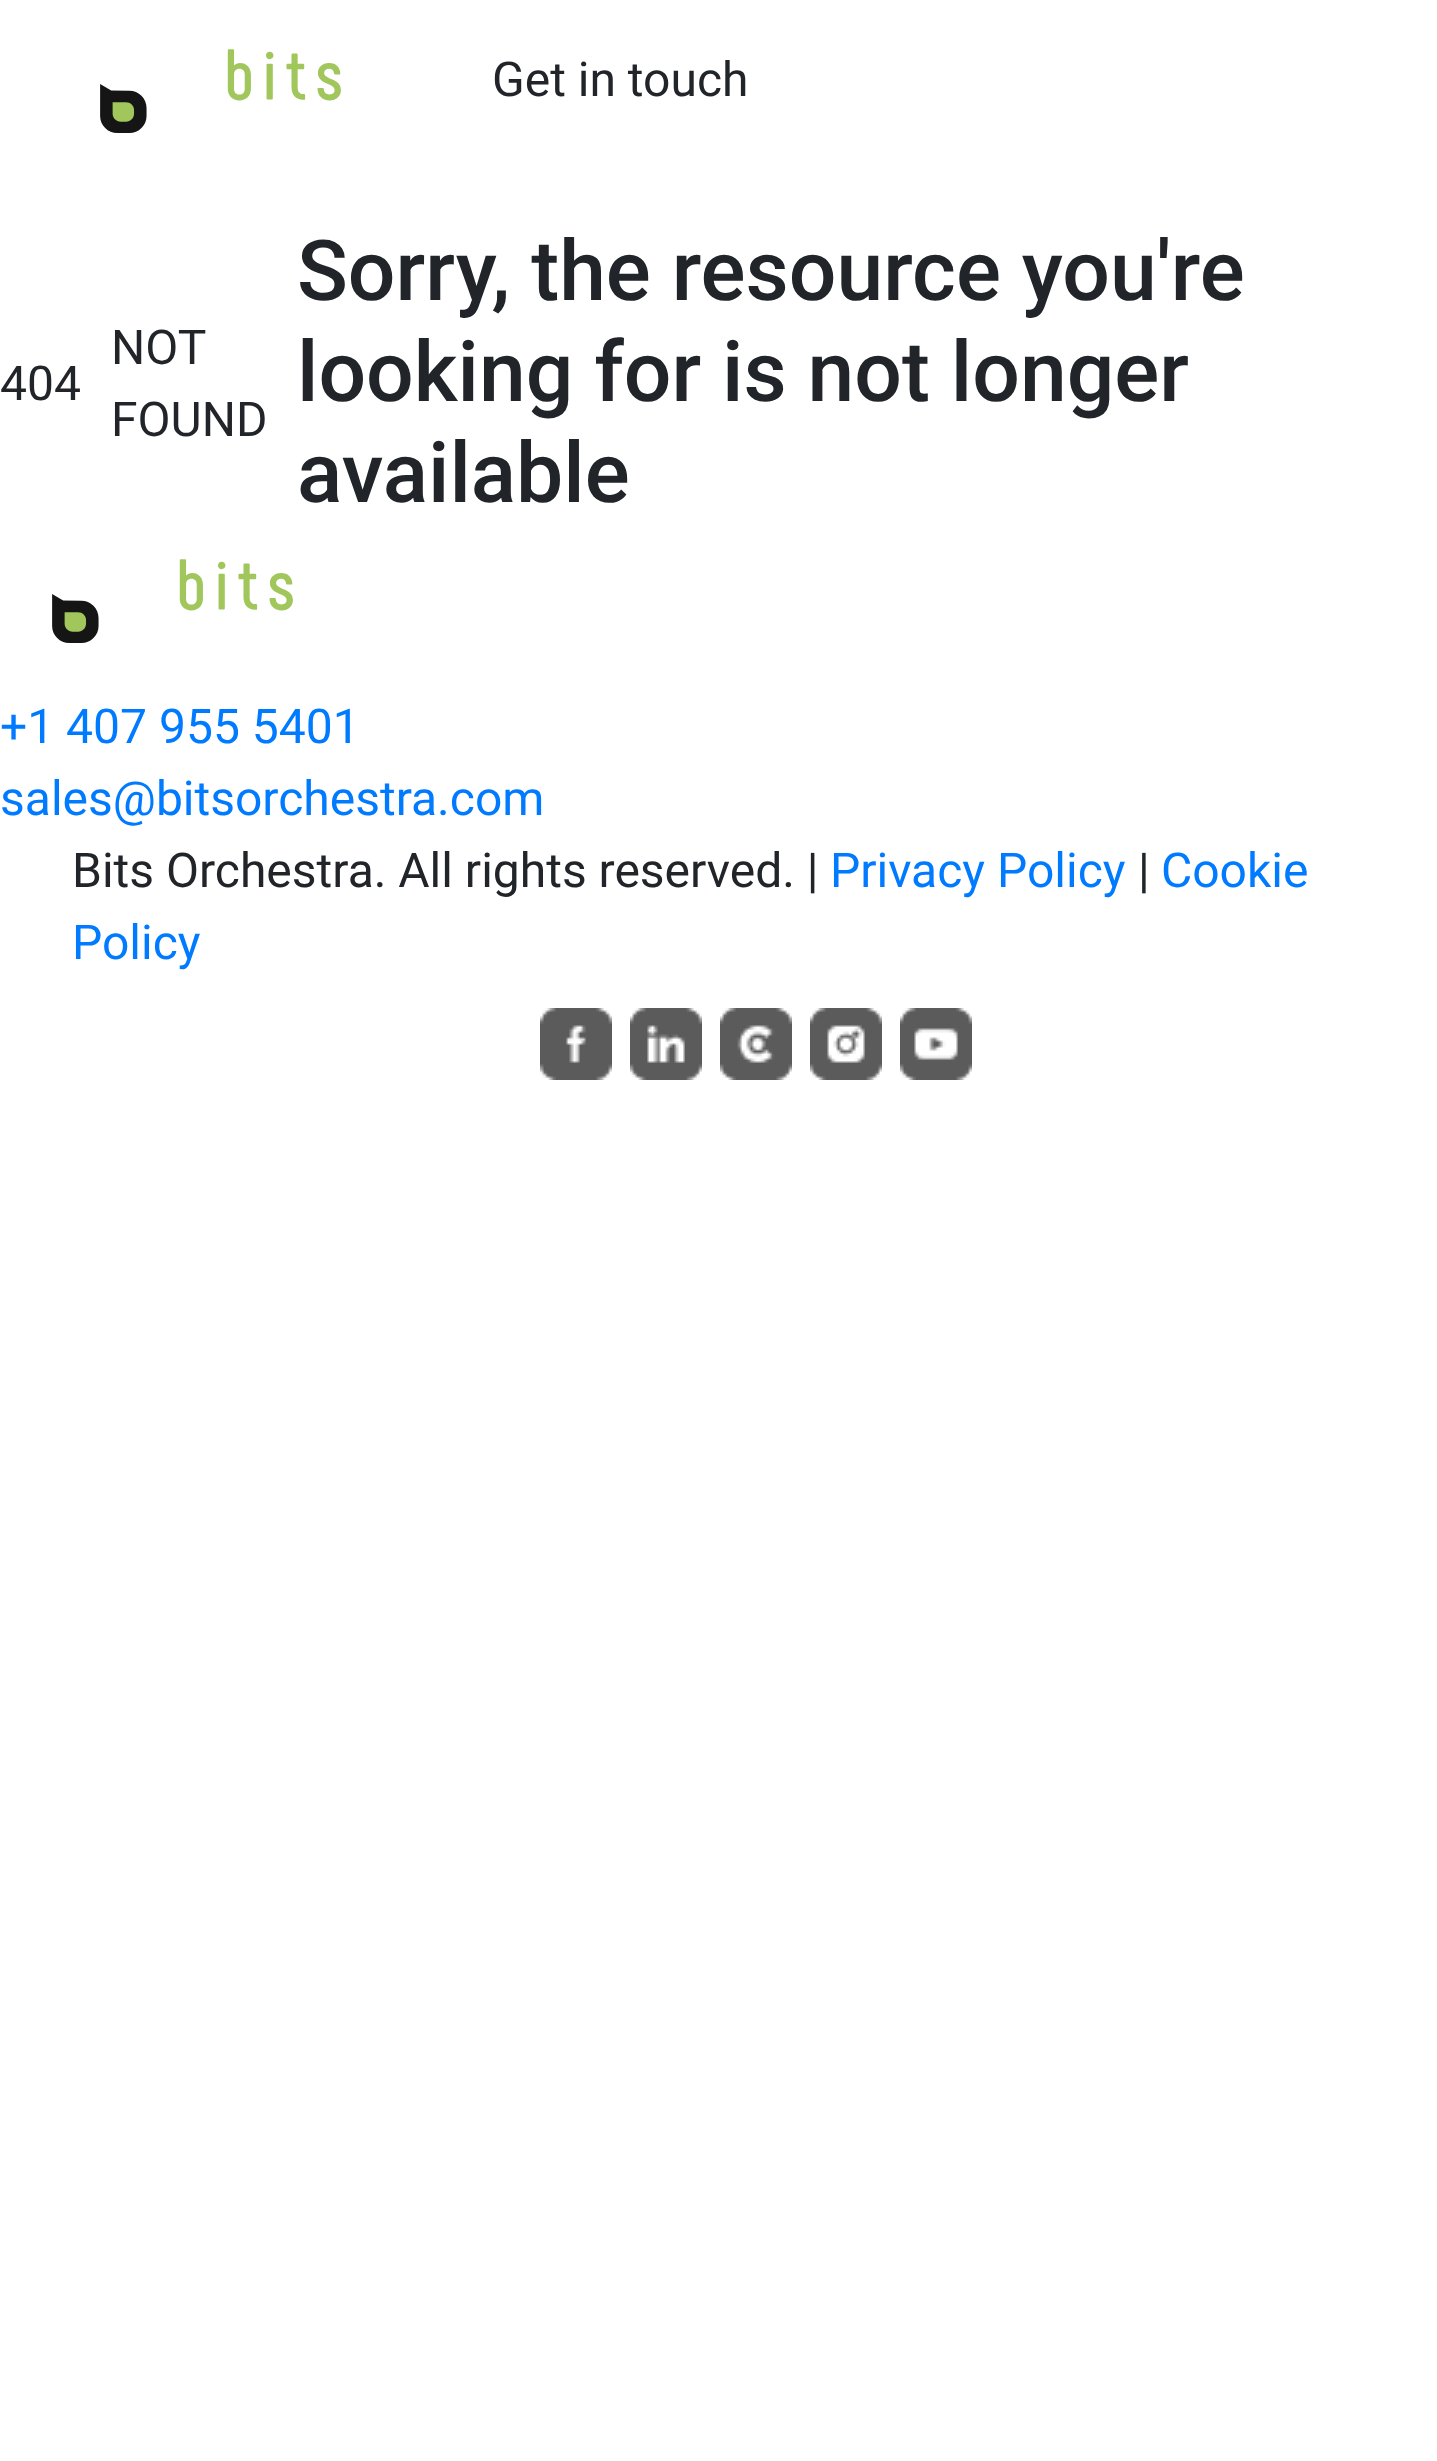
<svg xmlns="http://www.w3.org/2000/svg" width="1437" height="2461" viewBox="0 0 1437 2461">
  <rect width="100%" height="100%" fill="#fff"/>
  <image x="100" y="49" width="241" height="84" href="img/1.png"/>
  <image x="52" y="559" width="241" height="84" href="img/2.png"/>
  <image x="540" y="1008" width="72" height="72" href="img/3.png"/>
  <image x="630" y="1008" width="72" height="72" href="img/4.png"/>
  <image x="720" y="1008" width="72" height="72" href="img/5.png"/>
  <image x="810" y="1008" width="72" height="72" href="img/6.png"/>
  <image x="900" y="1008" width="72" height="72" href="img/7.png"/>
  <g font-family="Roboto" font-size="48" fill="#212529">
    <text x="492" y="96">Get in touch</text>
    <text x="0" y="400">404</text>
    <text x="111" y="364">NOT</text>
    <text x="111" y="436">FOUND</text>
  </g>
  <g font-family="Roboto" font-size="84" font-weight="500" fill="#212529">
    <text x="297" y="300">Sorry, the resource you're</text>
    <text x="297" y="401">looking for is not longer</text>
    <text x="297" y="502">available</text>
  </g>
  <g font-family="Roboto" font-size="48" fill="#007bff">
    <text x="0" y="743">+1 407 955 5401</text>
    <text x="0" y="815">sales@bitsorchestra.com</text>
  </g>
  <text x="72" y="887" font-family="Roboto" font-size="48" fill="#212529">Bits Orchestra. All rights reserved. |</text>
  <text x="830" y="887" font-family="Roboto" font-size="48" fill="#007bff">Privacy Policy</text>
  <text x="1138" y="887" font-family="Roboto" font-size="48" fill="#212529">|</text>
  <g font-family="Roboto" font-size="48" fill="#007bff">
    <text x="1161" y="887">Cookie</text>
    <text x="72" y="959">Policy</text>
  </g>
</svg>
